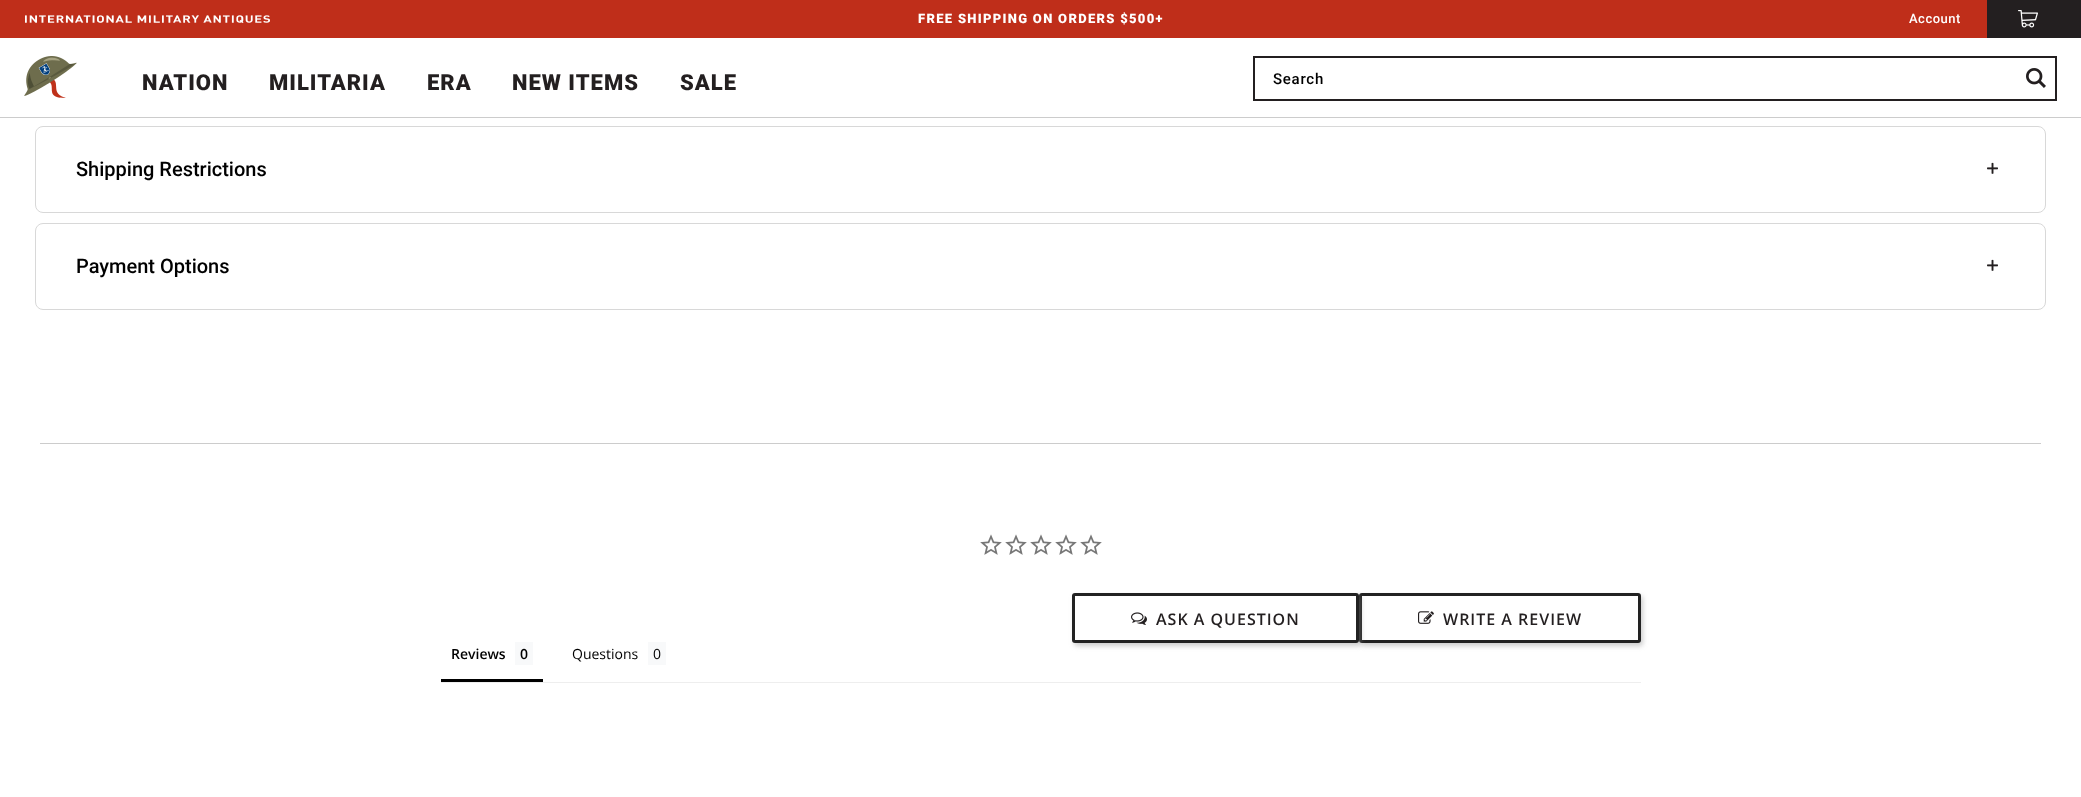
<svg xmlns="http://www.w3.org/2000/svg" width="2081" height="797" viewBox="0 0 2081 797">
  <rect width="100%" height="100%" fill="#fff"/>
  <path d="M0 117h2081v1H0z" fill="#ccc"/>
  <path d="M0 0h1987v38H0z" fill="#bf2e1a"/>
  <image x="25" y="15" width="245" height="8" href="img/1.png"/>
  <path d="M1987 0h94v38H1987z" fill="#231f20"/>
  <image x="2018" y="10" width="20" height="18" href="img/2.png"/>
  <image x="24" y="56" width="53" height="42" href="img/3.png"/>
  <path d="M1254 57h802v43H1254z" fill="none" stroke="#231f20" stroke-width="2"/>
  <image x="2026" y="68" width="20" height="20" href="img/4.png"/>
  <rect x="35.5" y="126.5" width="2010" height="86" rx="7.5" fill="none" stroke="#d8d8d8"/>
  <image x="1987" y="162" width="11" height="12" href="img/5.png"/>
  <rect x="35.5" y="223.5" width="2010" height="86" rx="7.5" fill="none" stroke="#d8d8d8"/>
  <image x="1987" y="259" width="11" height="12" href="img/5.png"/>
  <path d="M40 443h2001v1H40z" fill="#ccc"/>
  <image x="980" y="534" width="22" height="21" href="img/6.png"/>
  <image x="1005" y="534" width="22" height="21" href="img/6.png"/>
  <image x="1030" y="534" width="22" height="21" href="img/6.png"/>
  <image x="1055" y="534" width="22" height="21" href="img/6.png"/>
  <image x="1080" y="534" width="22" height="21" href="img/6.png"/>
  <rect x="1361" y="596" width="282" height="50" rx="3" fill="#8888886b" filter="blur(2.5px)"/>
  <rect x="1360.5" y="594.5" width="279" height="47" rx="1.5" fill="#fff" stroke="#222" stroke-width="3"/>
  <rect x="1074" y="596" width="287" height="50" rx="3" fill="#8888886b" filter="blur(2.5px)"/>
  <rect x="1073.5" y="594.5" width="284" height="47" rx="1.5" fill="#fff" stroke="#222" stroke-width="3"/>
  <image x="1131" y="612" width="16" height="13" href="img/7.png"/>
  <image x="1418" y="611" width="16" height="13" href="img/8.png"/>
  <path d="M441 682h1200v1H441z" fill="#eee"/>
  <path d="M441 679h102v3H441z" fill="#000"/>
  <path d="M515 642h18v23H515z" fill="#f8f9fa"/>
  <path d="M648 642h18v23H648z" fill="#f8f9fa"/>
  <text x="918" y="23" font-family="Roboto" font-size="13" font-weight="900" letter-spacing="1.3" fill="#fff">FREE SHIPPING ON ORDERS $500+</text>
  <text x="1909" y="23" font-family="Roboto" font-size="13" font-weight="500" letter-spacing="0.5" fill="#fff">Account</text>
  <g font-family="Roboto" font-size="22" font-weight="900" letter-spacing="1" fill="#231f20">
    <text x="142" y="90">NATION</text>
    <text x="269" y="90">MILITARIA</text>
    <text x="427" y="90">ERA</text>
    <text x="512" y="90">NEW ITEMS</text>
    <text x="680" y="90">SALE</text>
  </g>
  <text x="1273" y="84" font-family="Roboto" font-size="15" font-weight="500" letter-spacing="0.75" fill="#000">Search</text>
  <g font-family="Roboto" font-size="20" font-weight="500" fill="#000">
    <text x="76" y="176">Shipping Restrictions</text>
    <text x="76" y="273">Payment Options</text>
  </g>
  <g font-family="Open Sans" font-size="16" font-weight="600" letter-spacing="1" fill="#231f20">
    <text x="1156" y="625">ASK A QUESTION</text>
    <text x="1443" y="625">WRITE A REVIEW</text>
  </g>
  <g font-family="Open Sans" font-size="14" font-weight="600" fill="#000">
    <text x="451" y="659">Reviews</text>
    <text x="520" y="659">0</text>
  </g>
  <g font-family="Open Sans" font-size="14" fill="#000">
    <text x="572" y="659">Questions</text>
    <text x="653" y="659">0</text>
  </g>
</svg>
